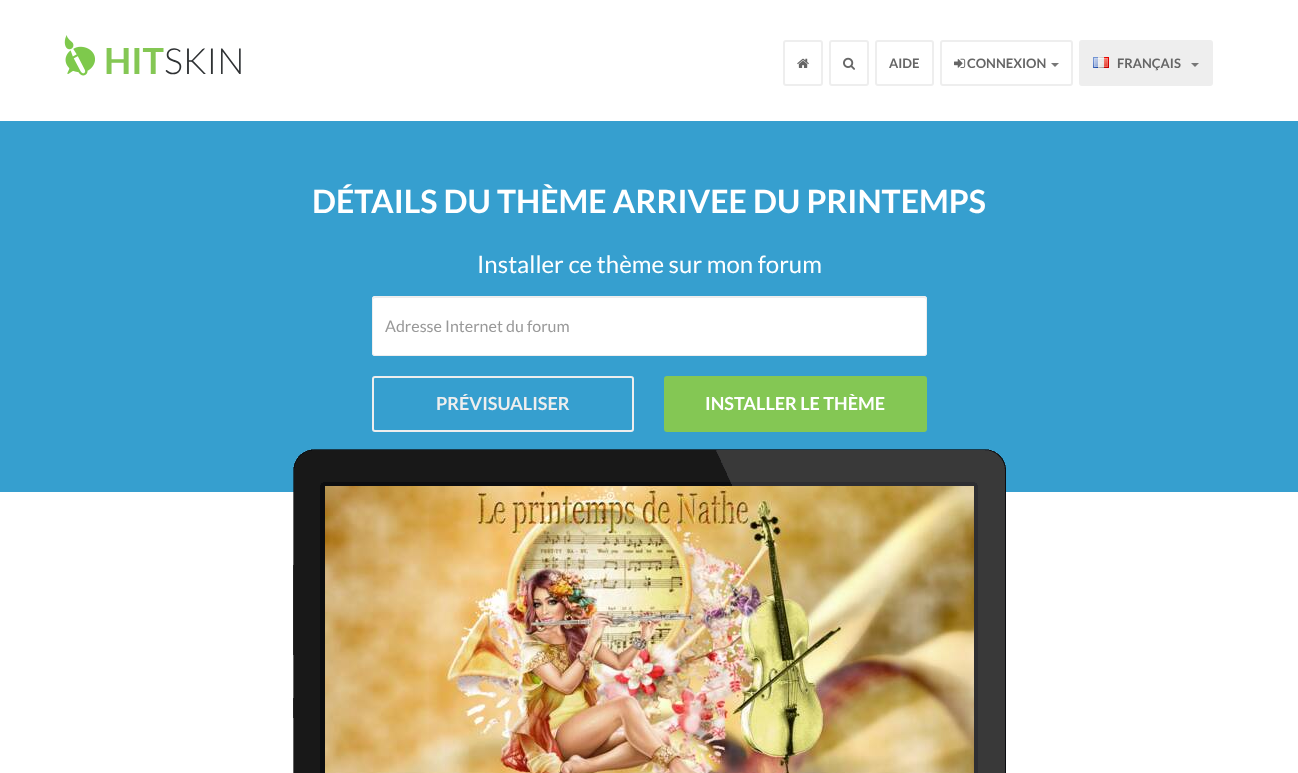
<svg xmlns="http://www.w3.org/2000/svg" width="1298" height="773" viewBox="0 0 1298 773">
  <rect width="100%" height="100%" fill="#fff"/>
  <image x="64" y="35" width="31" height="41" href="img/1.png"/>
  <rect x="784" y="41" width="38" height="44" rx="2" fill="none" stroke="#eee" stroke-width="2"/>
  <image x="797" y="58" width="12" height="10" href="img/2.png"/>
  <rect x="830" y="41" width="38" height="44" rx="2" fill="none" stroke="#eee" stroke-width="2"/>
  <image x="843" y="57" width="12" height="13" href="img/3.png"/>
  <rect x="876" y="41" width="57" height="44" rx="2" fill="none" stroke="#eee" stroke-width="2"/>
  <rect x="941" y="41" width="131" height="44" rx="2" fill="none" stroke="#eee" stroke-width="2"/>
  <image x="954" y="58" width="12" height="10" href="img/4.png"/>
  <path d="M1051 63H1059L1055 67Z" fill="#777"/>
  <rect x="1080" y="41" width="132" height="44" rx="2" fill="#eee" stroke="#eee" stroke-width="2"/>
  <image x="1093" y="57" width="16" height="11" href="img/5.png"/>
  <path d="M1191 63H1199L1195 67Z" fill="#777"/>
  <path d="M0 121h1298v371H0z" fill="#369fcf"/>
  <rect x="372" y="296" width="555" height="60" rx="3" fill="#fff"/>
  <path d="M375 298H924C925 298 926 299 926 300C926 299 926 297 924 297H375L373 298V300C373 299 374 298 375 298Z" fill="#ececec"/>
  <rect x="372.5" y="296.5" width="554" height="59" rx="2.5" fill="none" stroke="#eee"/>
  <rect x="373" y="377" width="260" height="54" rx="2" fill="none" stroke="#eee" stroke-width="2"/>
  <rect x="664" y="376" width="263" height="56" rx="3" fill="#84c754"/>
  <image x="325" y="486" width="649" height="287" href="img/7.png"/>
  <image x="293" y="449" width="713" height="324" href="img/6.png"/>
  <text x="104" y="74" font-family="Lato" font-size="36" font-weight="bold" fill="#84c754">HIT</text>
  <text x="164" y="74" font-family="Lato" font-size="36" font-weight="300" fill="#2e3133">SKIN</text>
  <g font-family="Lato" font-size="13" font-weight="bold" fill="#666">
    <text x="889" y="68">AIDE</text>
    <text x="967" y="68">CONNEXION</text>
    <text x="1117" y="68">FRANÇAIS</text>
  </g>
  <text x="312" y="213" font-family="Lato" font-size="32" font-weight="bold" fill="#fff">DÉTAILS DU THÈME ARRIVEE DU PRINTEMPS</text>
  <text x="477" y="273" font-family="Lato" font-size="24" fill="#fff">Installer ce thème sur mon forum</text>
  <text x="385" y="332" font-family="Lato" font-size="16" fill="#999">Adresse Internet du forum</text>
  <text x="436" y="410" font-family="Lato" font-size="18" font-weight="bold" fill="#eee">PRÉVISUALISER</text>
  <text x="705" y="410" font-family="Lato" font-size="18" font-weight="bold" fill="#fff">INSTALLER LE THÈME</text>
</svg>
